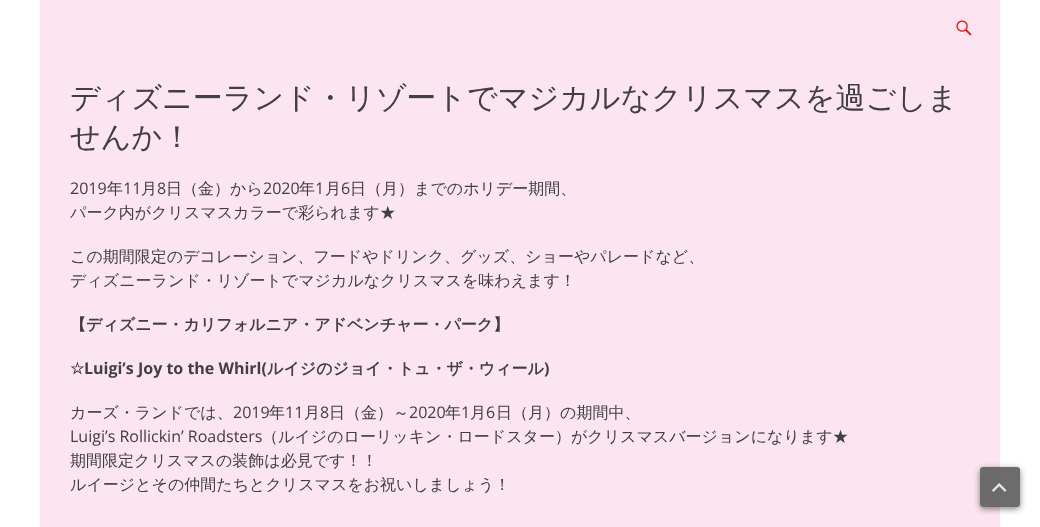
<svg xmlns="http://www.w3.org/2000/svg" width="1040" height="527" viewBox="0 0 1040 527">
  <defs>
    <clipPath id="clip1"><path d="M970 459H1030V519H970ZM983 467H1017C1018.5 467 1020 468.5 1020 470V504C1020 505.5 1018.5 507 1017 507H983C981.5 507 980 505.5 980 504V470C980 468.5 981.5 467 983 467Z" clip-rule="evenodd"/></clipPath>
  </defs>
  <rect width="100%" height="100%" fill="#fff"/>
  <path d="M40 0h960v527H40z" fill="#fce5f0"/>
  <image x="956" y="20" width="16" height="16" href="img/1.png"/>
  <g clip-path="url(#clip1)">
    <rect x="980" y="469" width="40" height="40" rx="3" fill="#0000007a" filter="blur(3px)"/>
  </g>
  <rect x="980" y="467" width="40" height="40" rx="3" fill="#666666f5"/>
  <image x="992" y="483" width="15" height="9" href="img/2.png"/>
  <g font-family="WenQuanYi Zen Hei" font-size="30" font-weight="500" fill="#404040">
    <text x="70" y="108">ディズニーランド・リゾートでマジカルなクリスマスを過ごしま</text>
    <text x="70" y="147">せんか！</text>
  </g>
  <text x="70" y="194" font-family="Open Sans" font-size="16" fill="#404040">2019</text>
  <text x="107" y="194" font-family="WenQuanYi Zen Hei" font-size="16" font-weight="500" fill="#404040">年</text>
  <text x="123" y="194" font-family="Open Sans" font-size="16" fill="#404040">11</text>
  <text x="141" y="194" font-family="WenQuanYi Zen Hei" font-size="16" font-weight="500" fill="#404040">月</text>
  <text x="157" y="194" font-family="Open Sans" font-size="16" fill="#404040">8</text>
  <text x="166" y="194" font-family="WenQuanYi Zen Hei" font-size="16" font-weight="500" fill="#404040">日（金）から</text>
  <text x="263" y="194" font-family="Open Sans" font-size="16" fill="#404040">2020</text>
  <text x="299" y="194" font-family="WenQuanYi Zen Hei" font-size="16" font-weight="500" fill="#404040">年</text>
  <text x="315" y="194" font-family="Open Sans" font-size="16" fill="#404040">1</text>
  <text x="325" y="194" font-family="WenQuanYi Zen Hei" font-size="16" font-weight="500" fill="#404040">月</text>
  <text x="341" y="194" font-family="Open Sans" font-size="16" fill="#404040">6</text>
  <g font-family="WenQuanYi Zen Hei" font-size="16" font-weight="500" fill="#404040">
    <text x="350" y="194">日（月）までのホリデー期間、</text>
    <text x="70" y="218">パーク内がクリスマスカラーで彩られます★</text>
    <text x="70" y="262">この期間限定のデコレーション、フードやドリンク、グッズ、ショーやパレードなど、</text>
    <text x="70" y="286">ディズニーランド・リゾートでマジカルなクリスマスを味わえます！</text>
  </g>
  <text x="70" y="330" font-family="WenQuanYi Zen Hei" font-size="16" font-weight="bold" fill="#404040">【ディズニー・カリフォルニア・アドベンチャー・パーク】</text>
  <text x="70" y="374" font-family="DejaVu Sans" font-size="16" font-weight="bold" fill="#404040">☆</text>
  <text x="84" y="374" font-family="Open Sans" font-size="16" font-weight="bold" fill="#404040">Luigi’s Joy to the Whirl(</text>
  <text x="267" y="374" font-family="WenQuanYi Zen Hei" font-size="16" font-weight="bold" fill="#404040">ルイジのジョイ・トュ・ザ・ウィール</text>
  <text x="544" y="374" font-family="Open Sans" font-size="16" font-weight="bold" fill="#404040">)</text>
  <text x="70" y="418" font-family="WenQuanYi Zen Hei" font-size="16" font-weight="500" fill="#404040">カーズ・ランドでは、</text>
  <text x="233" y="418" font-family="Open Sans" font-size="16" fill="#404040">2019</text>
  <text x="269" y="418" font-family="WenQuanYi Zen Hei" font-size="16" font-weight="500" fill="#404040">年</text>
  <text x="285" y="418" font-family="Open Sans" font-size="16" fill="#404040">11</text>
  <text x="304" y="418" font-family="WenQuanYi Zen Hei" font-size="16" font-weight="500" fill="#404040">月</text>
  <text x="320" y="418" font-family="Open Sans" font-size="16" fill="#404040">8</text>
  <text x="329" y="418" font-family="WenQuanYi Zen Hei" font-size="16" font-weight="500" fill="#404040">日（金）～</text>
  <text x="409" y="418" font-family="Open Sans" font-size="16" fill="#404040">2020</text>
  <text x="445" y="418" font-family="WenQuanYi Zen Hei" font-size="16" font-weight="500" fill="#404040">年</text>
  <text x="461" y="418" font-family="Open Sans" font-size="16" fill="#404040">1</text>
  <text x="470" y="418" font-family="WenQuanYi Zen Hei" font-size="16" font-weight="500" fill="#404040">月</text>
  <text x="486" y="418" font-family="Open Sans" font-size="16" fill="#404040">6</text>
  <text x="496" y="418" font-family="WenQuanYi Zen Hei" font-size="16" font-weight="500" fill="#404040">日（月）の期間中、</text>
  <text x="70" y="442" font-family="Open Sans" font-size="16" fill="#404040">Luigi’s Rollickin’ Roadsters</text>
  <g font-family="WenQuanYi Zen Hei" font-size="16" font-weight="500" fill="#404040">
    <text x="262" y="442">（ルイジのローリッキン・ロードスター）がクリスマスバージョンになります★</text>
    <text x="70" y="466">期間限定クリスマスの装飾は必見です！！</text>
    <text x="70" y="490">ルイージとその仲間たちとクリスマスをお祝いしましょう！</text>
  </g>
</svg>
